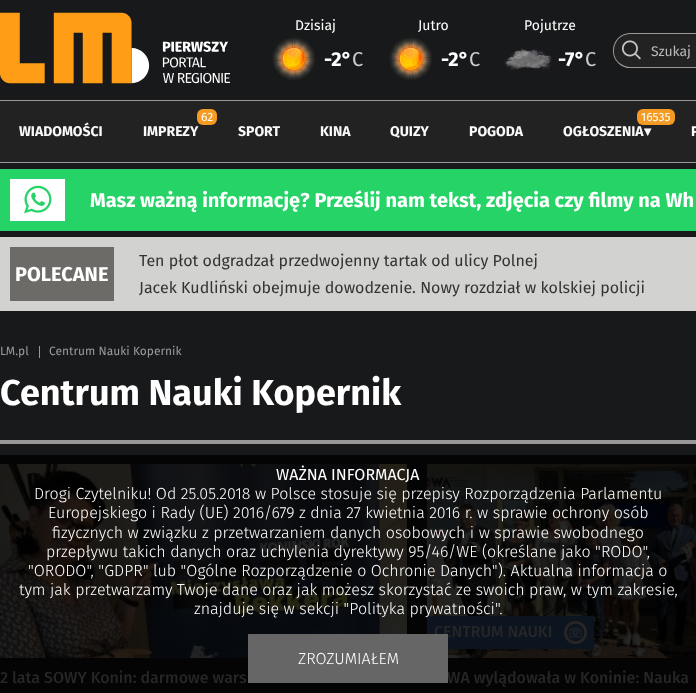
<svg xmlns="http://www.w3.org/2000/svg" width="696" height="693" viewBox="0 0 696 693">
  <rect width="100%" height="100%" fill="#18191a"/>
  <path d="M0 455h696v238H0z" fill="#040404"/>
  <image x="0" y="12" width="230" height="72" href="img/1.png"/>
  <image x="272" y="37" width="43" height="43" href="img/2.png"/>
  <image x="389" y="37" width="43" height="43" href="img/2.png"/>
  <image x="504" y="48" width="48" height="22" href="img/3.png"/>
  <path d="M630 33H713V68H630C620.5 68 613 60.5 613 51V50C613 40.5 620.5 33 630 33Z" fill="#222"/>
  <path d="M630 33H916V68H627C623 67 620 65 618 63C607 52 615 33 630 33ZM630 34H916V67H630C627 67 624 66 621 64C608 56 614 34 630 34Z" fill="#999" fill-rule="evenodd"/>
  <image x="622" y="40" width="19" height="20" href="img/4.png"/>
  <path d="M0 101h696v61H0z" fill="#222"/>
  <path d="M0 100h696v1H0z" fill="#999"/>
  <path d="M0 162h696v1H0z" fill="#999"/>
  <rect x="197" y="109" width="20" height="16" rx="6" fill="#f59b23"/>
  <rect x="637" y="109" width="38" height="16" rx="6" fill="#f59b23"/>
  <path d="M0 169h696v62H0z" fill="#25d366"/>
  <path d="M10 179h55v42H10z" fill="#fff"/>
  <image x="24" y="185" width="28" height="29" href="img/5.png"/>
  <path d="M0 237h696v74H0z" fill="#d2d2d1"/>
  <path d="M10 247h104v54H10z" fill="#6d6b67"/>
  <path d="M39 346h1v12H39z" fill="#999"/>
  <path d="M0 440h696v4H0z" fill="#999"/>
  <image x="0" y="464" width="407" height="194" href="img/6.png"/>
  <image x="427" y="464" width="269" height="194" href="img/7.png"/>
  <path d="M427 616h167v33H427z" fill="#0c1420"/>
  <image x="564" y="621" width="23" height="23" href="img/8.png"/>
  <text x="295" y="30" font-family="Fira Sans" font-size="14" fill="#fff">Dzisiaj</text>
  <text x="324" y="66" font-family="Fira Sans" font-size="20" font-weight="bold" fill="#fff">-2°</text>
  <text x="352" y="66" font-family="Fira Sans" font-size="20" fill="#ccc">C</text>
  <text x="418" y="30" font-family="Fira Sans" font-size="14" fill="#fff">Jutro</text>
  <text x="441" y="66" font-family="Fira Sans" font-size="20" font-weight="bold" fill="#fff">-2°</text>
  <text x="469" y="66" font-family="Fira Sans" font-size="20" fill="#ccc">C</text>
  <text x="524" y="30" font-family="Fira Sans" font-size="14" fill="#fff">Pojutrze</text>
  <text x="558" y="66" font-family="Fira Sans" font-size="20" font-weight="bold" fill="#fff">-7°</text>
  <text x="585" y="66" font-family="Fira Sans" font-size="20" fill="#ccc">C</text>
  <text x="651" y="56" font-family="Fira Sans" font-size="14" fill="#bbb">Szukaj</text>
  <text x="19" y="136" font-family="Fira Sans" font-size="14" font-weight="bold" fill="#f9f9f9">WIADOMOŚCI</text>
  <text x="201" y="121" font-family="Fira Sans" font-size="12" fill="#fff">62</text>
  <g font-family="Fira Sans" font-size="14" font-weight="bold" fill="#f9f9f9">
    <text x="143" y="136">IMPREZY</text>
    <text x="238" y="136">SPORT</text>
    <text x="320" y="136">KINA</text>
    <text x="390" y="136">QUIZY</text>
    <text x="469" y="136">POGODA</text>
  </g>
  <text x="641" y="121" font-family="Fira Sans" font-size="12" fill="#fff">16535</text>
  <text x="563" y="136" font-family="Fira Sans" font-size="14" font-weight="bold" fill="#f9f9f9">OGŁOSZENIA</text>
  <text x="644" y="136" font-family="DejaVu Sans" font-size="14" font-weight="bold" fill="#f9f9f9">▾</text>
  <text x="691" y="136" font-family="Fira Sans" font-size="14" font-weight="bold" fill="#f9f9f9">P</text>
  <g font-family="Fira Sans" font-size="20" font-weight="bold" fill="#fff">
    <text x="90" y="207">Masz ważną informację? Prześlij nam tekst, zdjęcia czy filmy na Wh</text>
    <text x="15" y="281">POLECANE</text>
  </g>
  <g font-family="Fira Sans" font-size="16" fill="#333">
    <text x="139" y="266">Ten płot odgradzał przedwojenny tartak od ulicy Polnej</text>
    <text x="139" y="293">Jacek Kudliński obejmuje dowodzenie. Nowy rozdział w kolskiej policji</text>
  </g>
  <g font-family="Fira Sans" font-size="12" fill="#999">
    <text x="0" y="355">LM.pl</text>
    <text x="49" y="355">Centrum Nauki Kopernik</text>
  </g>
  <text x="0" y="405" font-family="Fira Sans" font-size="36" font-weight="bold" fill="#fff">Centrum Nauki Kopernik</text>
  <g font-family="Fira Sans" font-size="16" font-weight="500" fill="#262626">
    <text x="0" y="683">2 lata SOWY Konin: darmowe wars</text>
    <text x="434" y="637">CENTRUM NAUKI</text>
    <text x="447" y="683">WA wylądowała w Koninie: Nauka</text>
  </g>
  <text x="276" y="480" font-family="Fira Sans" font-size="16" fill="#fff">WAŻNA INFORMACJA</text>
  <g font-family="Fira Sans" font-size="16" font-weight="300" fill="#fff">
    <text x="34" y="499">Drogi Czytelniku! Od 25.05.2018 w Polsce stosuje się przepisy Rozporządzenia Parlamentu</text>
    <text x="48" y="518">Europejskiego i Rady (UE) 2016/679 z dnia 27 kwietnia 2016 r. w sprawie ochrony osób</text>
    <text x="52" y="538">fizycznych w związku z przetwarzaniem danych osobowych i w sprawie swobodnego</text>
    <text x="46" y="557">przepływu takich danych oraz uchylenia dyrektywy 95/46/WE (określane jako "RODO",</text>
    <text x="28" y="576">"ORODO", "GDPR" lub "Ogólne Rozporządzenie o Ochronie Danych"). Aktualna informacja o</text>
    <text x="19" y="595">tym jak przetwarzamy Twoje dane oraz jak możesz skorzystać ze swoich praw, w tym zakresie,</text>
    <text x="194" y="614">znajduje się w sekcji "Polityka prywatności".</text>
  </g>
  <path d="M248 634h200v49H248z" fill="#666"/>
  <text x="298" y="664" font-family="Fira Sans" font-size="16" font-weight="300" fill="#fff">ZROZUMIAŁEM</text>
</svg>
